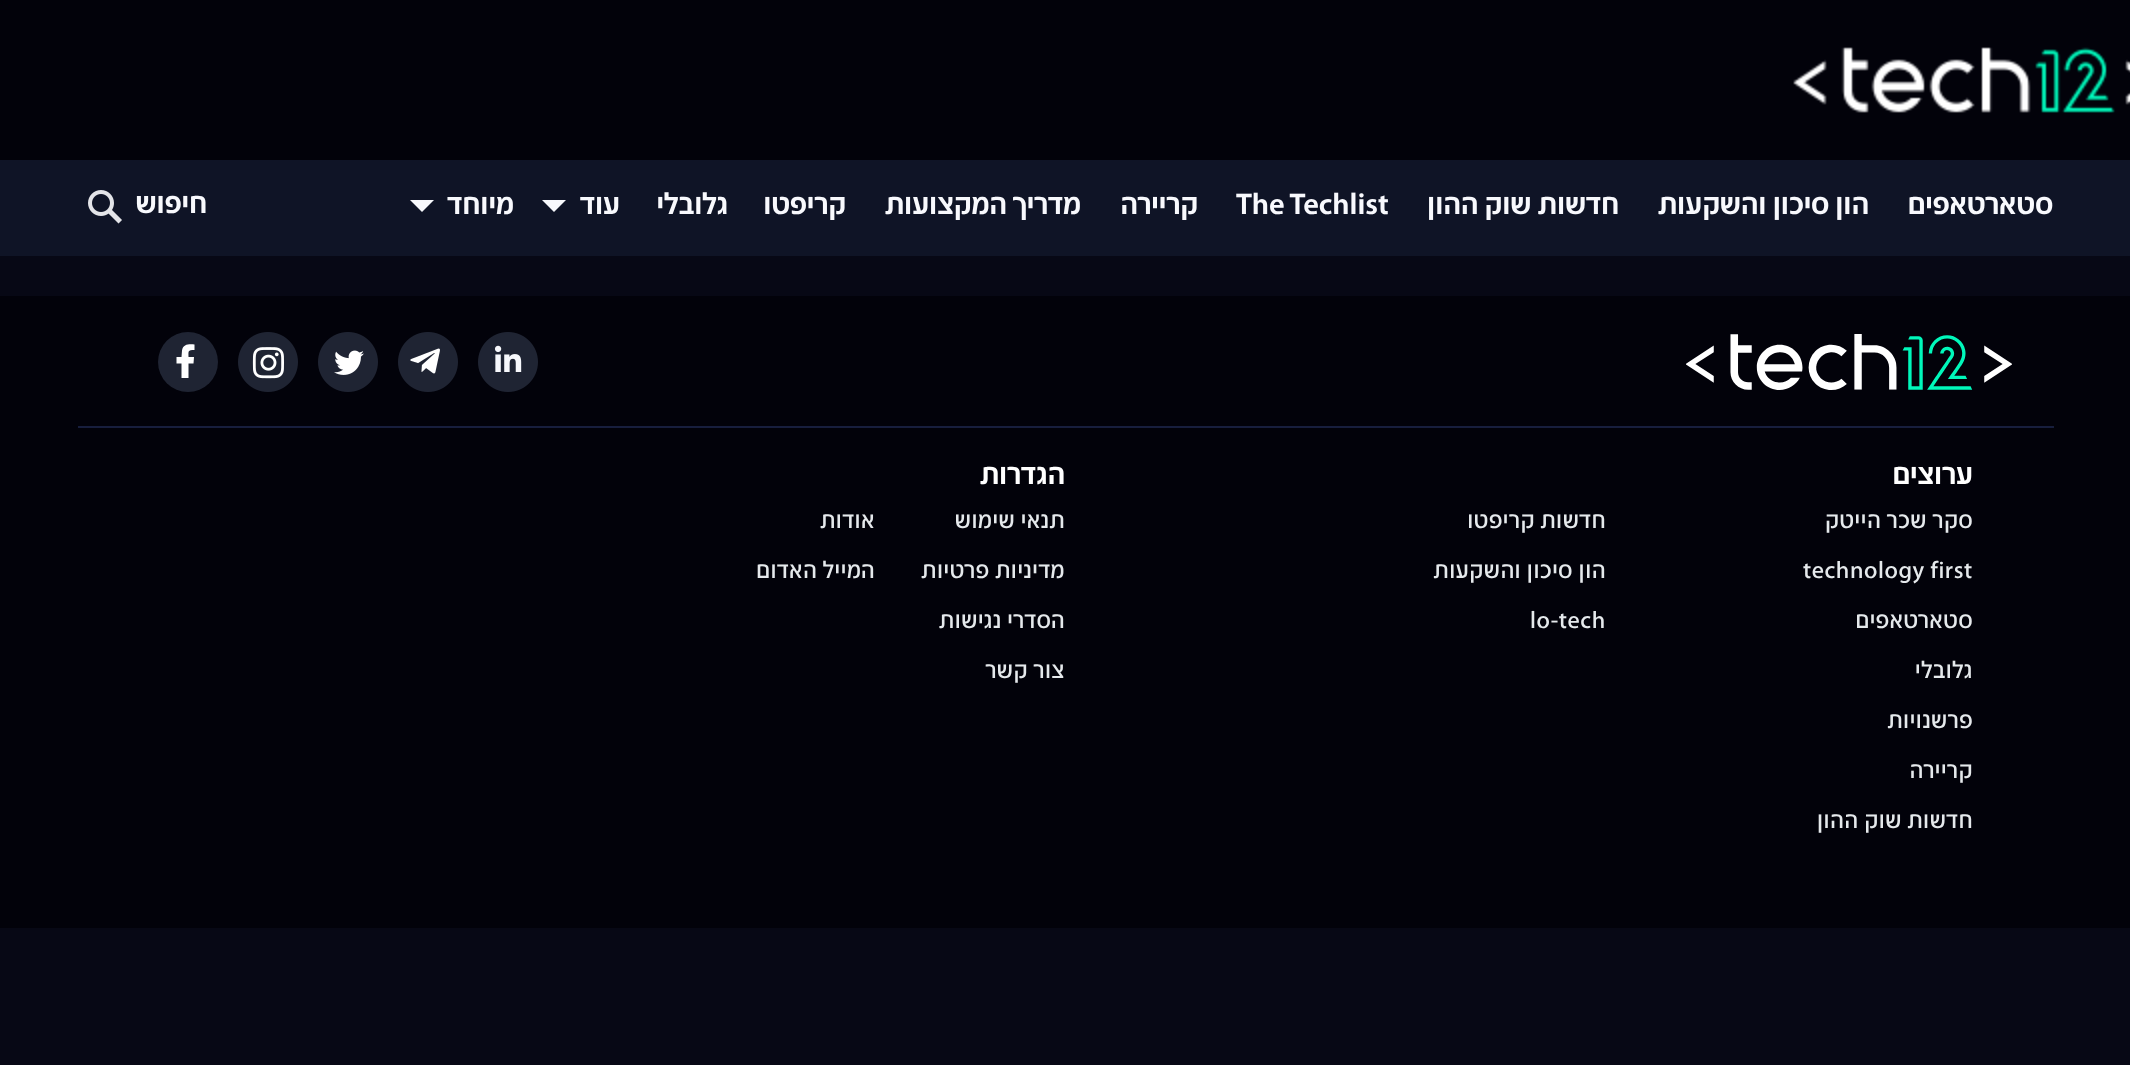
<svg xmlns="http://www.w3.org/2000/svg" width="2130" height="1065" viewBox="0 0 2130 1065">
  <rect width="100%" height="100%" fill="#070815"/>
  <path d="M0 0h2130v160H0z" fill="#02020a"/>
  <image x="1793" y="47" width="337" height="66" href="img/1.png"/>
  <path d="M0 160h2130v96H0z" fill="#0f1426"/>
  <path d="M542 200H566L554 212Z" fill="#f8f9fd"/>
  <path d="M410 200H434L422 212Z" fill="#f8f9fd"/>
  <image x="88" y="190" width="34" height="34" href="img/2.png"/>
  <path d="M0 296h2130v632H0z" fill="#02020a"/>
  <path d="M78 426h1976v2H78z" fill="#171e3d"/>
  <image x="1686" y="334" width="326" height="56" href="img/3.png"/>
  <image x="478" y="332" width="60" height="60" href="img/4.png"/>
  <image x="398" y="332" width="60" height="60" href="img/5.png"/>
  <image x="318" y="332" width="60" height="60" href="img/6.png"/>
  <image x="238" y="332" width="60" height="60" href="img/7.png"/>
  <circle cx="188" cy="362" r="30" fill="#1f2433"/>
  <path d="M188.5 378V363.5H193.5L194 357H188.5C188.5 351 187.5 350 194.5 350V344.5C189 344 183 344 182 350.5L181.5 357H176.5V363.5H181.5V378Z" fill="#fff"/>
  <g font-family="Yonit" font-size="30" font-weight="500" direction="rtl" fill="#f8f9fd">
    <text x="2053" y="214">סטארטאפים</text>
    <text x="1869" y="214">הון סיכון והשקעות</text>
    <text x="1619" y="214">חדשות שוק ההון</text>
  </g>
  <text x="1236" y="214" font-family="Yonit" font-size="30" font-weight="500" fill="#f8f9fd">The Techlist</text>
  <g font-family="Yonit" font-size="30" font-weight="500" direction="rtl" fill="#f8f9fd">
    <text x="1198" y="214">קריירה</text>
    <text x="1081" y="214">מדריך המקצועות</text>
    <text x="846" y="214">קריפטו</text>
    <text x="728" y="214">גלובלי</text>
    <text x="620" y="214">עוד</text>
    <text x="514" y="214">מיוחד</text>
    <text x="207" y="213">חיפוש</text>
  </g>
  <text x="1973" y="484" font-family="Yonit" font-size="30" font-weight="500" direction="rtl" fill="#fff">ערוצים</text>
  <g font-family="Yonit" font-size="24" letter-spacing="0.6" direction="rtl" fill="#e5e9ec">
    <text x="1973" y="528">סקר שכר הייטק</text>
    <text x="1606" y="528">חדשות קריפטו</text>
  </g>
  <text x="1803" y="578" font-family="Yonit" font-size="24" letter-spacing="0.6" fill="#e5e9ec">technology first</text>
  <g font-family="Yonit" font-size="24" letter-spacing="0.6" direction="rtl" fill="#e5e9ec">
    <text x="1606" y="578">הון סיכון והשקעות</text>
    <text x="1973" y="628">סטארטאפים</text>
  </g>
  <text x="1530" y="628" font-family="Yonit" font-size="24" letter-spacing="0.6" fill="#e5e9ec">lo-tech</text>
  <g font-family="Yonit" font-size="24" letter-spacing="0.6" direction="rtl" fill="#e5e9ec">
    <text x="1973" y="678">גלובלי</text>
    <text x="1973" y="728">פרשנויות</text>
    <text x="1973" y="778">קריירה</text>
    <text x="1973" y="828">חדשות שוק ההון</text>
  </g>
  <text x="1065" y="484" font-family="Yonit" font-size="30" font-weight="500" direction="rtl" fill="#fff">הגדרות</text>
  <g font-family="Yonit" font-size="24" letter-spacing="0.6" direction="rtl" fill="#e5e9ec">
    <text x="1065" y="528">תנאי שימוש</text>
    <text x="875" y="528">אודות</text>
    <text x="1065" y="578">מדיניות פרטיות</text>
    <text x="875" y="578">המייל האדום</text>
    <text x="1065" y="628">הסדרי נגישות</text>
    <text x="1065" y="678">צור קשר</text>
  </g>
</svg>
